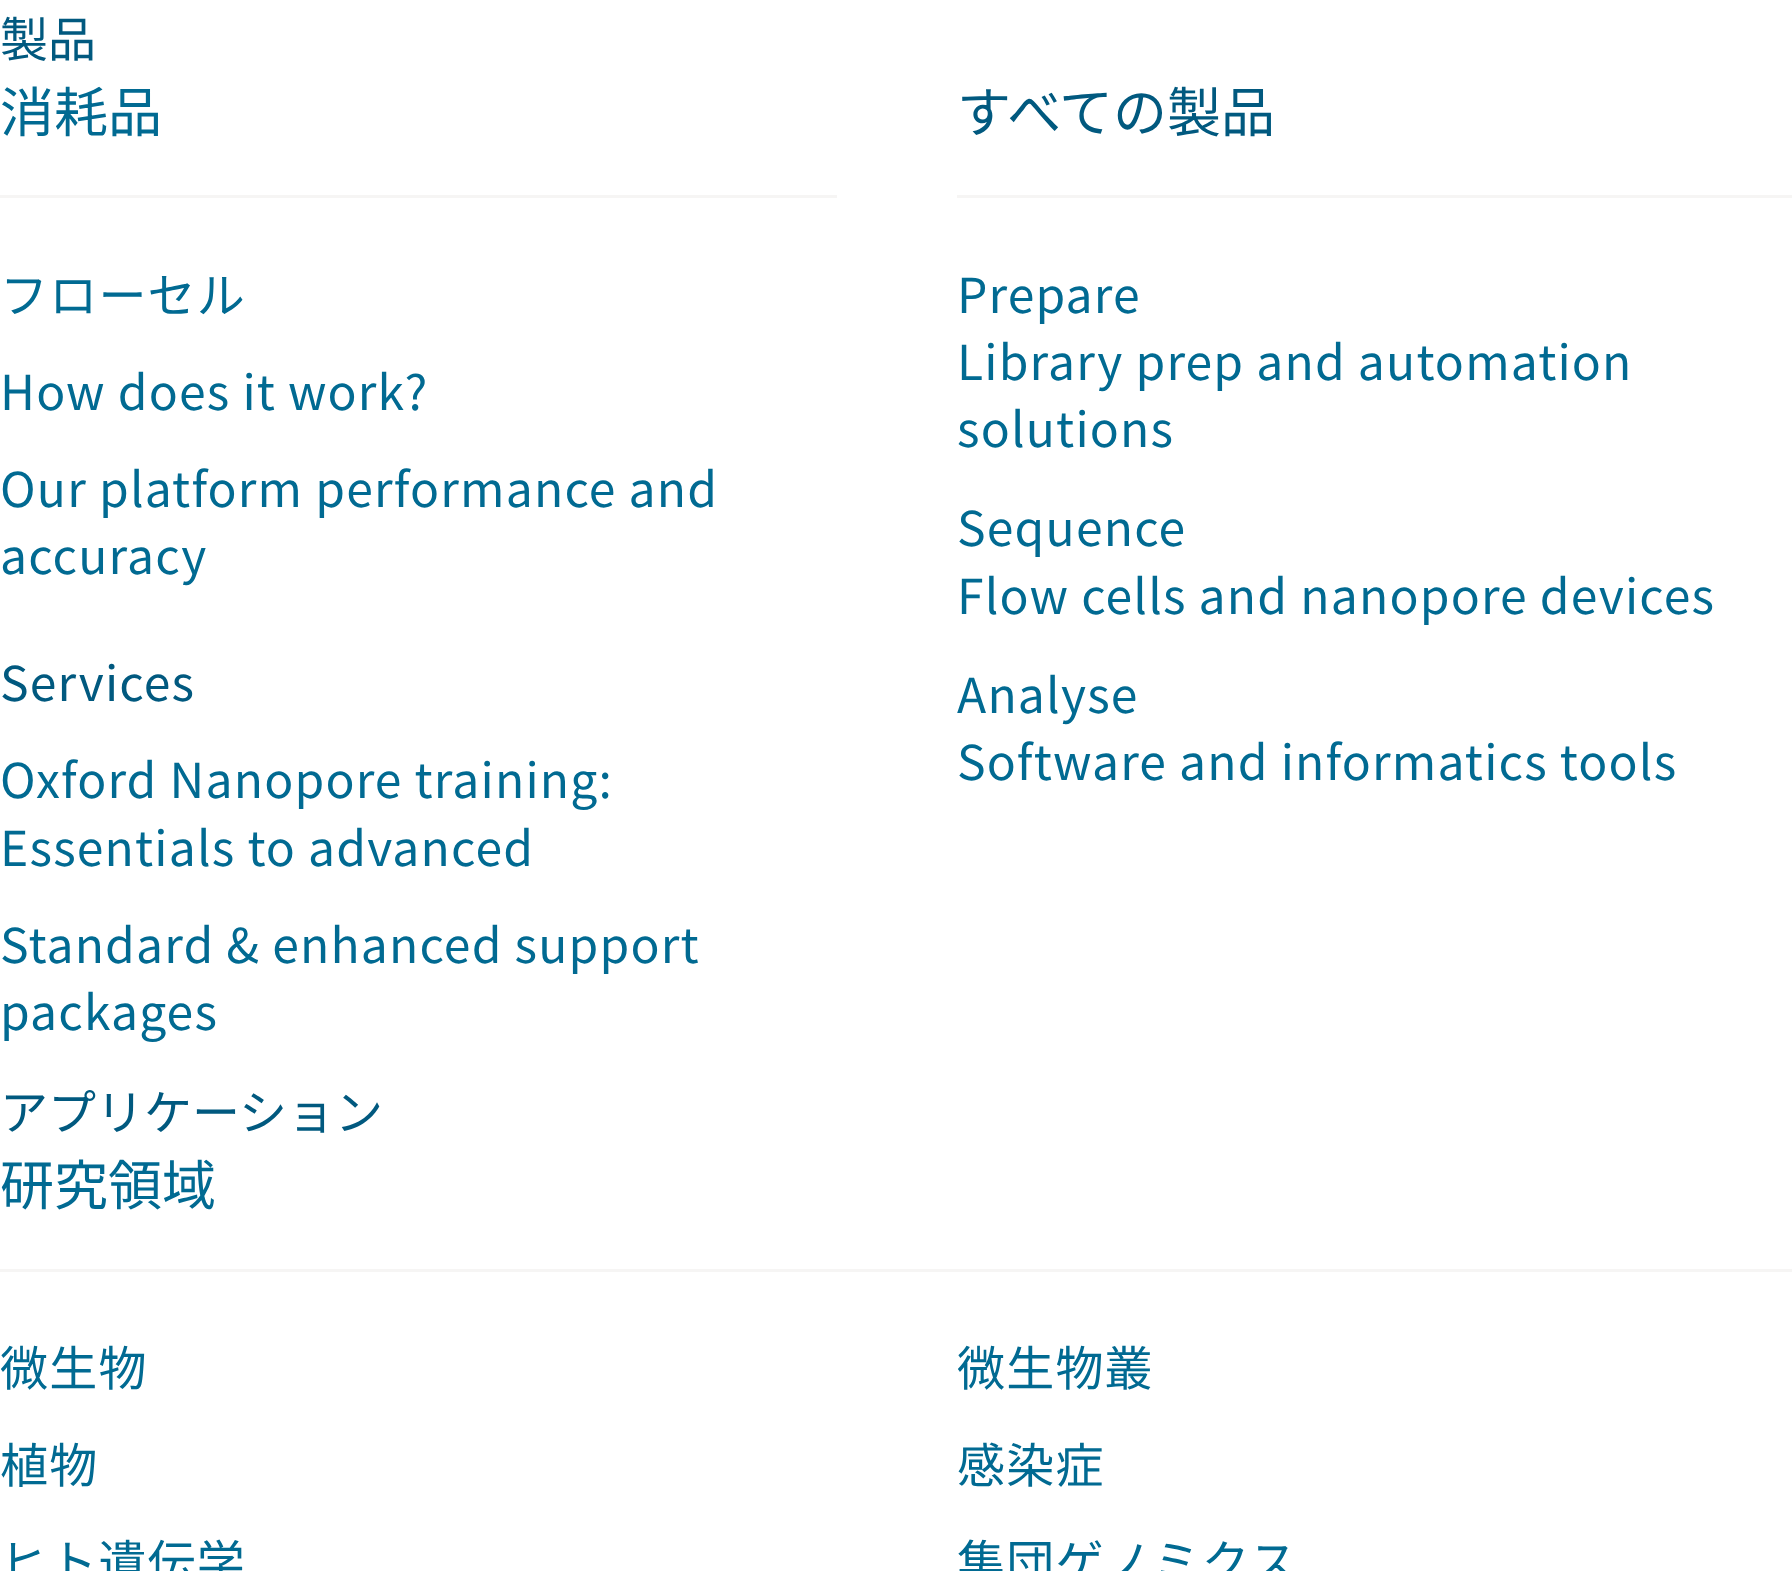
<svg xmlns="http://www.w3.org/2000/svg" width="1792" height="1571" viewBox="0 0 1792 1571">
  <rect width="100%" height="100%" fill="#fff"/>
  <path d="M0 195h837v3H0z" fill="#f6f5f4"/>
  <path d="M957 195h835v3H957z" fill="#f6f5f4"/>
  <path d="M0 1269h1792v3H0z" fill="#f6f5f4"/>
  <text x="0" y="57" font-family="Noto Sans JP" font-size="48" fill="#01597f">製品</text>
  <text x="0" y="132" font-family="Noto Sans JP" font-size="54" fill="#016a92">消耗品</text>
  <g font-family="Noto Sans JP" font-size="48" letter-spacing="1.2" fill="#016a92">
    <text x="0" y="313">フローセル</text>
    <text x="0" y="410">How does it work?</text>
    <text x="0" y="507">Our platform performance and</text>
    <text x="0" y="574">accuracy</text>
  </g>
  <text x="0" y="701" font-family="Noto Sans JP" font-size="48" letter-spacing="1.2" fill="#01597f">Services</text>
  <g font-family="Noto Sans JP" font-size="48" letter-spacing="1.2" fill="#016a92">
    <text x="0" y="798">Oxford Nanopore training:</text>
    <text x="0" y="866">Essentials to advanced</text>
    <text x="0" y="963">Standard &amp; enhanced support</text>
    <text x="0" y="1030">packages</text>
  </g>
  <text x="957" y="132" font-family="Noto Sans JP" font-size="54" fill="#01597f">すべての製品</text>
  <g font-family="Noto Sans JP" font-size="48" letter-spacing="1.2" fill="#016a92">
    <text x="957" y="313">Prepare</text>
    <text x="957" y="380">Library prep and automation</text>
    <text x="957" y="447">solutions</text>
    <text x="957" y="546">Sequence</text>
    <text x="957" y="614">Flow cells and nanopore devices</text>
    <text x="957" y="713">Analyse</text>
    <text x="957" y="780">Software and informatics tools</text>
  </g>
  <text x="0" y="1130" font-family="Noto Sans JP" font-size="48" fill="#01597f">アプリケーション</text>
  <text x="0" y="1205" font-family="Noto Sans JP" font-size="54" fill="#016a92">研究領域</text>
  <g font-family="Noto Sans JP" font-size="48" letter-spacing="1.2" fill="#016a92">
    <text x="0" y="1386">微生物</text>
    <text x="957" y="1386">微生物叢</text>
    <text x="0" y="1483">植物</text>
    <text x="957" y="1483">感染症</text>
    <text x="0" y="1580">ヒト遺伝学</text>
    <text x="957" y="1580">集団ゲノミクス</text>
  </g>
</svg>
